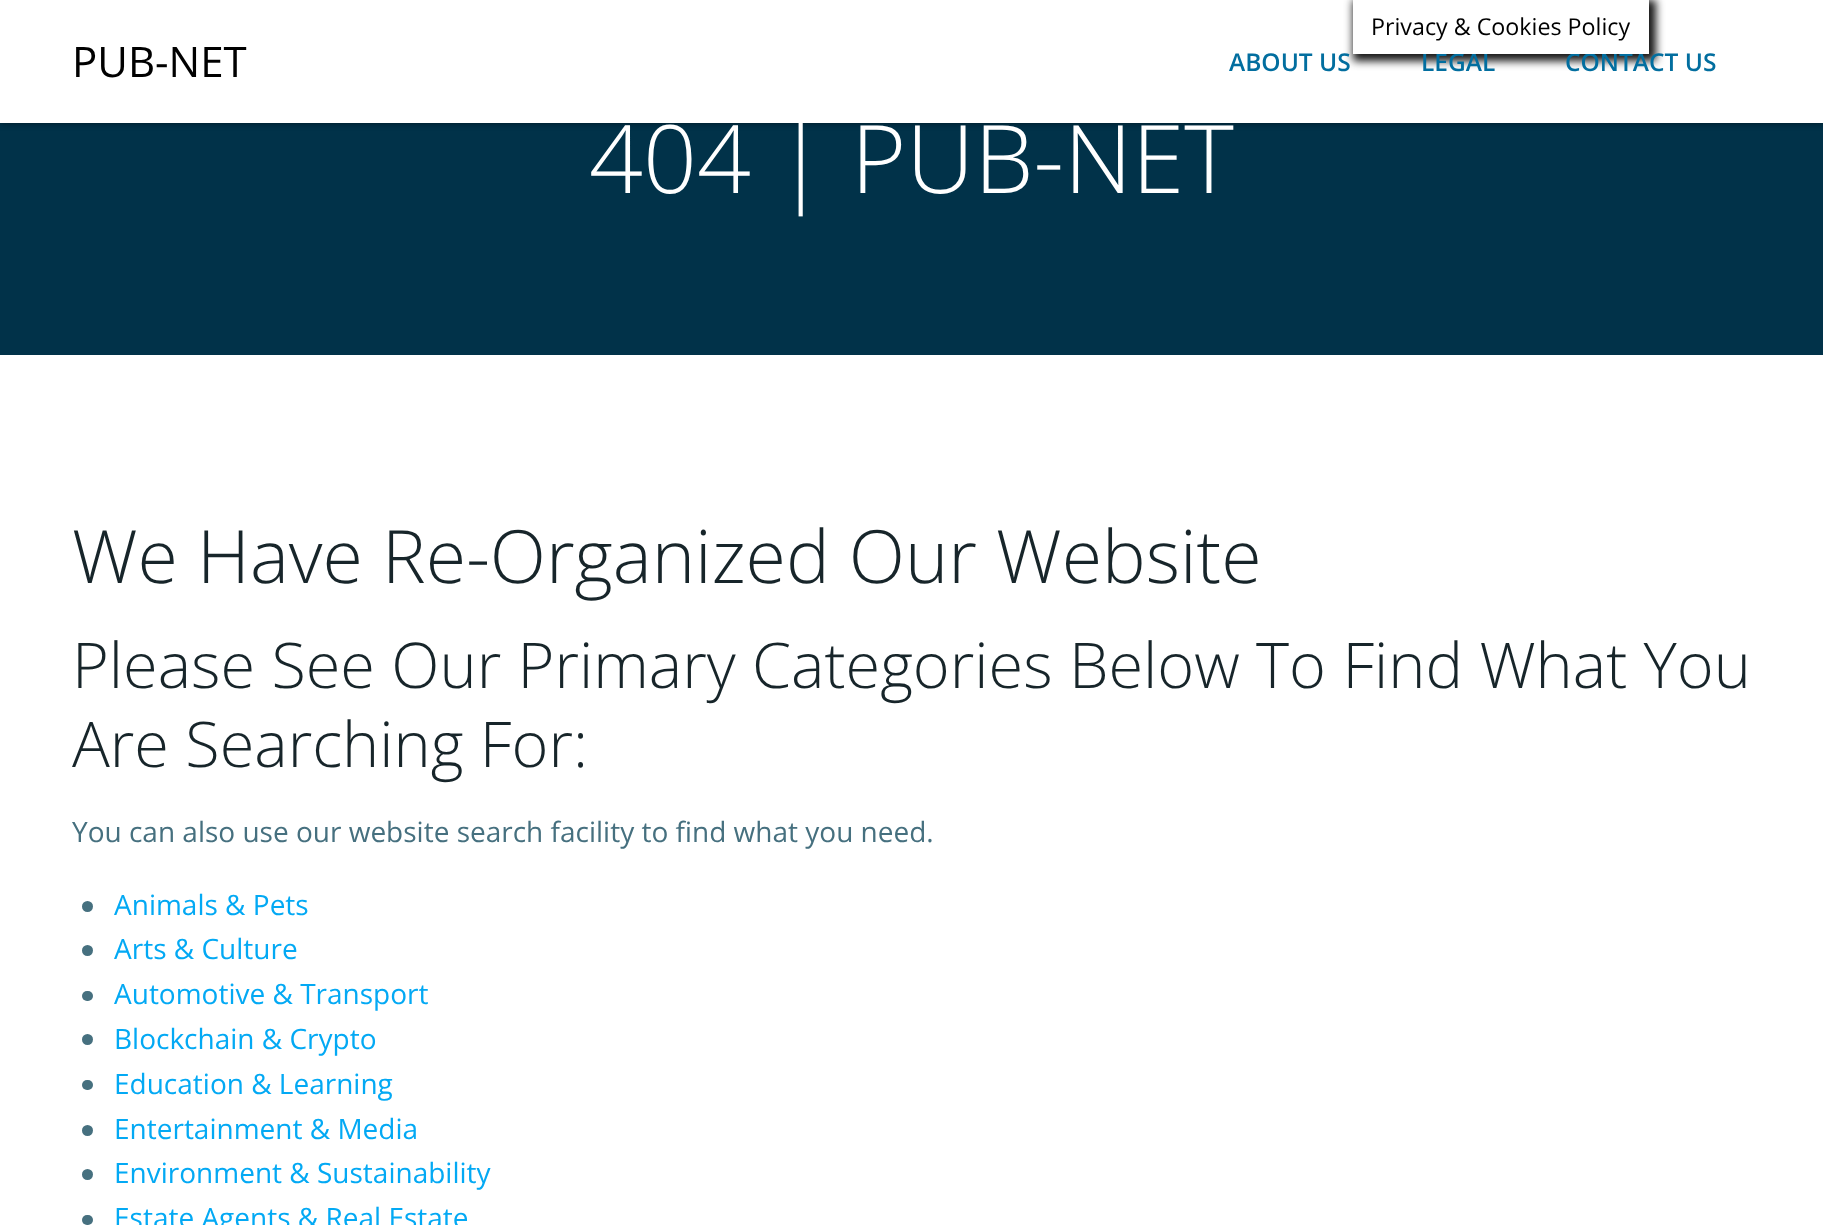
<svg xmlns="http://www.w3.org/2000/svg" width="1823" height="1225" viewBox="0 0 1823 1225">
  <rect width="100%" height="100%" fill="#fff"/>
  <path d="M0 123h1823v232H0z" fill="#013249"/>
  <path d="M0 0h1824v123H0z" fill="#00000080" filter="blur(3.5px)"/>
  <path d="M0 0h1823v123H0z" fill="#fff"/>
  <path d="M1353 0h303v61H1353z" fill="#161616" filter="blur(4.5px)"/>
  <circle cx="87.5" cy="906.5" r="5.5" fill="#46707f"/>
  <circle cx="87.5" cy="950.5" r="5.5" fill="#46707f"/>
  <rect x="82" y="991" width="11" height="10" rx="5" fill="#46707f"/>
  <circle cx="87.5" cy="1039.5" r="5.5" fill="#46707f"/>
  <rect x="82" y="1080" width="11" height="10" rx="5" fill="#46707f"/>
  <circle cx="87.5" cy="1130.5" r="5.5" fill="#46707f"/>
  <circle cx="87.5" cy="1174.5" r="5.5" fill="#46707f"/>
  <rect x="82" y="1215" width="11" height="10" rx="5" fill="#46707f"/>
  <text x="72" y="77" font-family="Open Sans" font-size="42" fill="#000">PUB-NET</text>
  <g font-family="Open Sans" font-size="24.5" font-weight="600" fill="#026e9f">
    <text x="1229" y="71">ABOUT US</text>
    <text x="1421" y="71">LEGAL</text>
    <text x="1565" y="71">CONTACT US</text>
  </g>
  <path d="M1353 0h296v54H1353z" fill="#fff"/>
  <text x="1371" y="35" font-family="Open Sans" font-size="23.25" fill="#000">Privacy &amp; Cookies Policy</text>
  <text x="589" y="193" font-family="Open Sans" font-size="94.5" font-weight="300" fill="#fff">404 | PUB-NET</text>
  <text x="72" y="583" font-family="Open Sans" font-size="73.5" font-weight="300" fill="#17252a">We Have Re-Organized Our Website</text>
  <g font-family="Open Sans" font-size="63" font-weight="300" fill="#17252a">
    <text x="72" y="688">Please See Our Primary Categories Below To Find What You</text>
    <text x="72" y="767">Are Searching For:</text>
  </g>
  <text x="72" y="842" font-family="Open Sans" font-size="28" fill="#46707f">You can also use our website search facility to find what you need.</text>
  <g font-family="Open Sans" font-size="28" fill="#03a9f4">
    <text x="114" y="915">Animals &amp; Pets</text>
    <text x="114" y="959">Arts &amp; Culture</text>
    <text x="114" y="1004">Automotive &amp; Transport</text>
    <text x="114" y="1049">Blockchain &amp; Crypto</text>
    <text x="114" y="1094">Education &amp; Learning</text>
    <text x="114" y="1139">Entertainment &amp; Media</text>
    <text x="114" y="1183">Environment &amp; Sustainability</text>
    <text x="114" y="1228">Estate Agents &amp; Real Estate</text>
  </g>
</svg>
